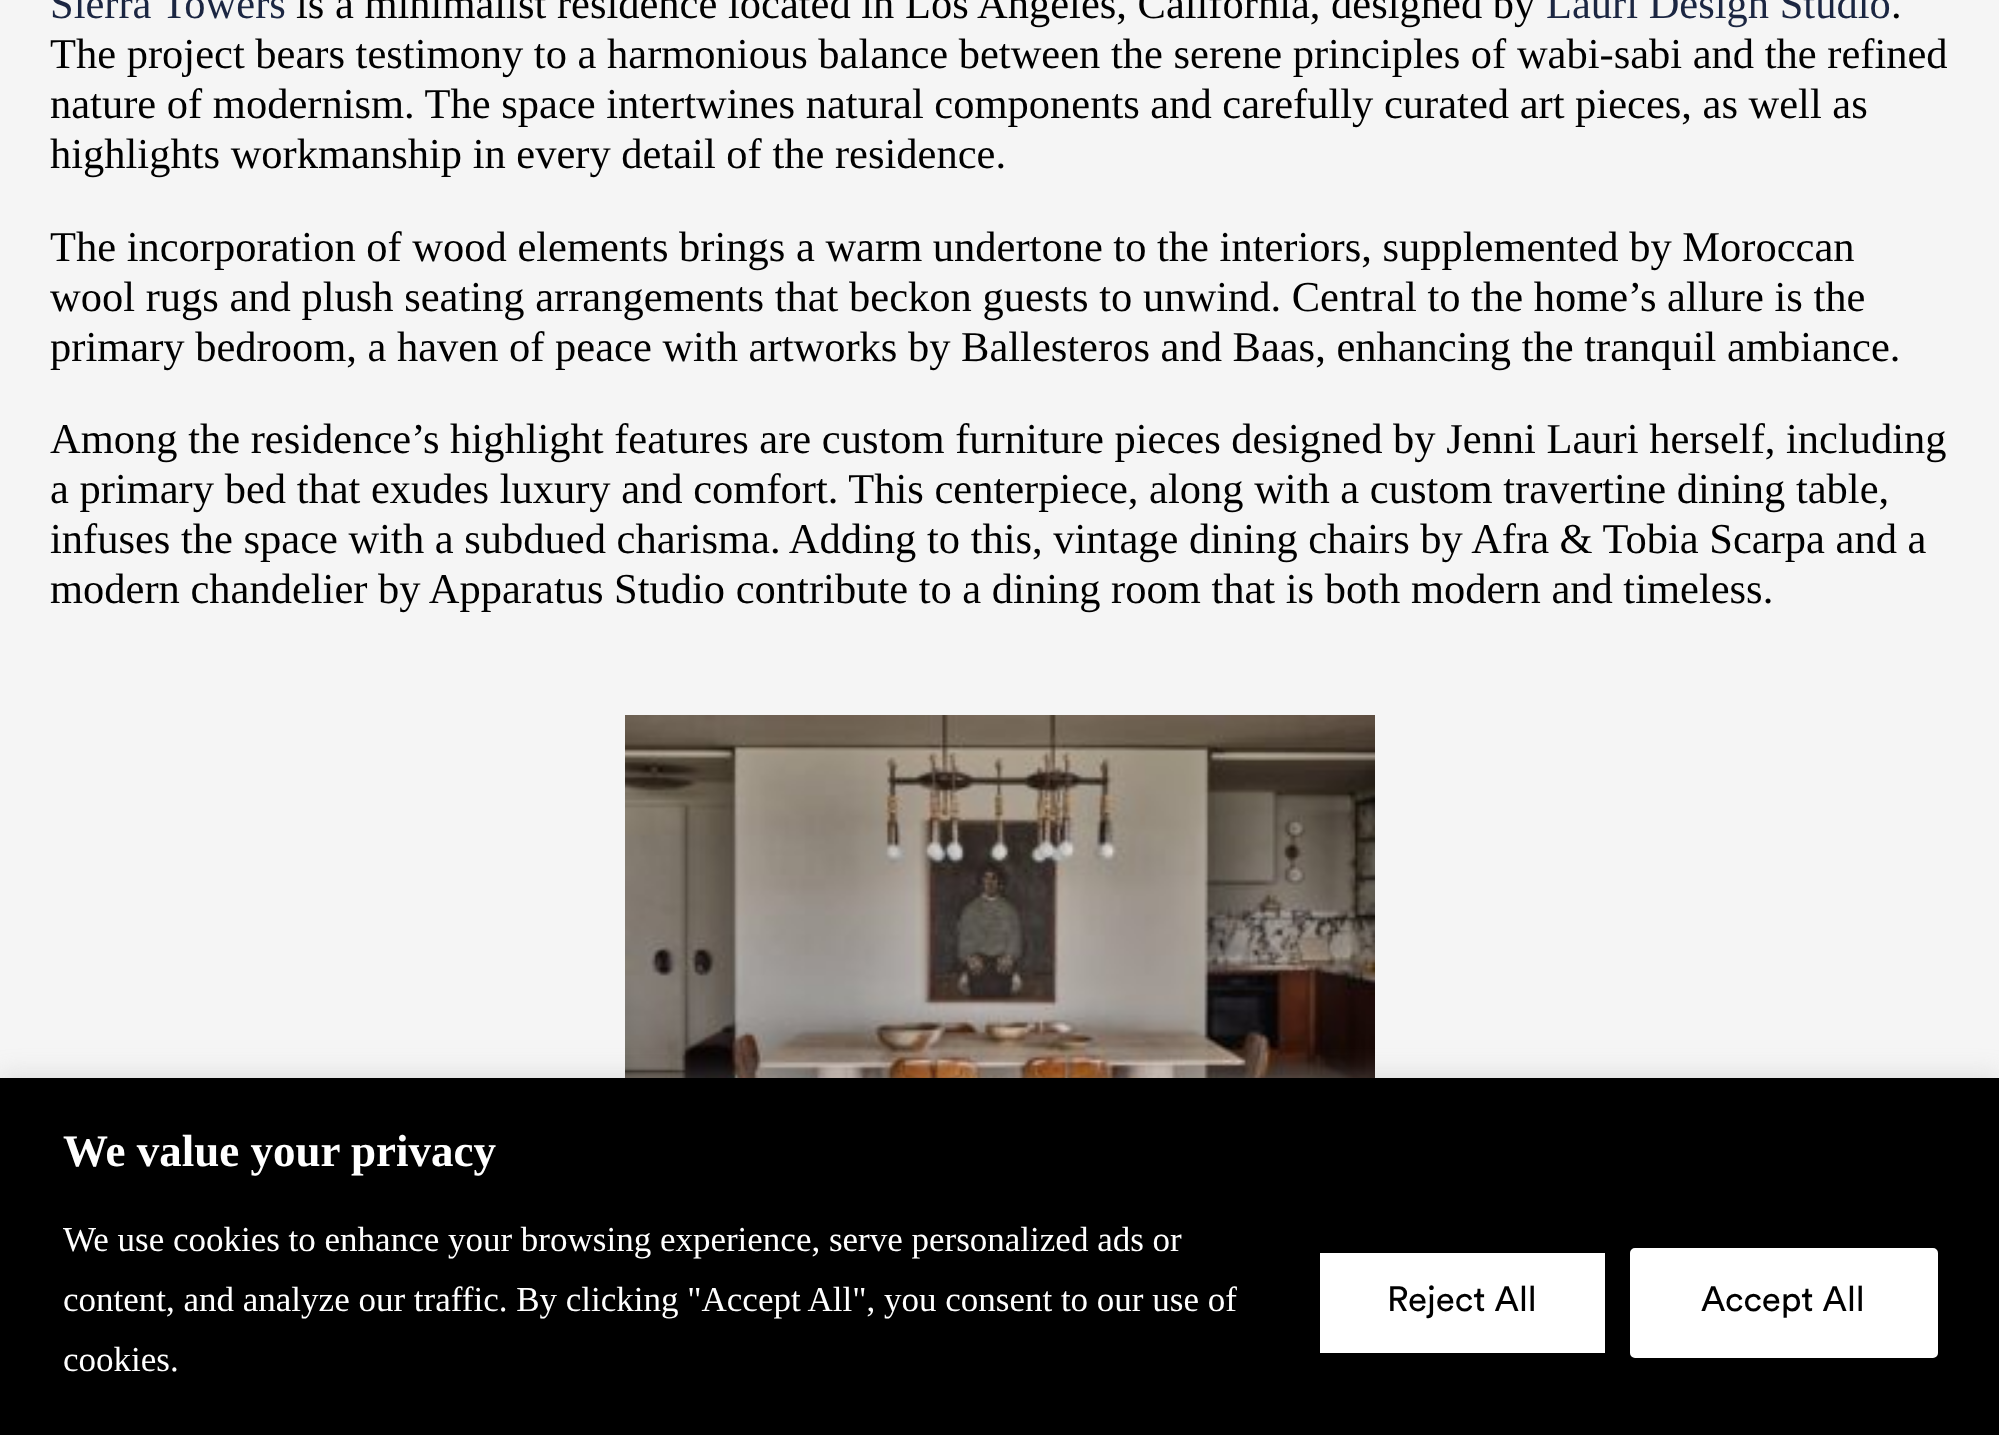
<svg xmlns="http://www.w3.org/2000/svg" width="1999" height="1435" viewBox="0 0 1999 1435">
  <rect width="100%" height="100%" fill="#f5f5f5"/>
  <image x="625" y="715" width="750" height="363" href="img/1.png"/>
  <path d="M0 1075h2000v358H0z" fill="#acabab4d" filter="blur(12.5px)"/>
  <path d="M0 1078h1999v357H0z" fill="#000"/>
  <rect x="1317.5" y="1250.5" width="290" height="105" rx="2.5" fill="#fff" stroke="#000" stroke-width="5"/>
  <rect x="1632.5" y="1250.5" width="303" height="105" rx="2.5" fill="#fff" stroke="#fff" stroke-width="5"/>
  <text x="50" y="18" font-family="Liberation Serif" font-size="42.5" fill="#1b2642">Sierra Towers</text>
  <text x="296" y="18" font-family="Liberation Serif" font-size="42.5" fill="#000">is a minimalist residence located in Los Angeles, California, designed by</text>
  <text x="1546" y="18" font-family="Liberation Serif" font-size="42.5" fill="#1b2642">Lauri Design Studio</text>
  <g font-family="Liberation Serif" font-size="42.5" fill="#000">
    <text x="1891" y="18">.</text>
    <text x="50" y="68">The project bears testimony to a harmonious balance between the serene principles of wabi-sabi and the refined</text>
    <text x="50" y="118">nature of modernism. The space intertwines natural components and carefully curated art pieces, as well as</text>
    <text x="50" y="168">highlights workmanship in every detail of the residence.</text>
    <text x="50" y="261">The incorporation of wood elements brings a warm undertone to the interiors, supplemented by Moroccan</text>
    <text x="50" y="311">wool rugs and plush seating arrangements that beckon guests to unwind. Central to the home’s allure is the</text>
    <text x="50" y="361">primary bedroom, a haven of peace with artworks by Ballesteros and Baas, enhancing the tranquil ambiance.</text>
    <text x="50" y="453">Among the residence’s highlight features are custom furniture pieces designed by Jenni Lauri herself, including</text>
    <text x="50" y="503">a primary bed that exudes luxury and comfort. This centerpiece, along with a custom travertine dining table,</text>
    <text x="50" y="553">infuses the space with a subdued charisma. Adding to this, vintage dining chairs by Afra &amp; Tobia Scarpa and a</text>
    <text x="50" y="603">modern chandelier by Apparatus Studio contribute to a dining room that is both modern and timeless.</text>
  </g>
  <text x="63" y="1166" font-family="Liberation Serif" font-size="45" font-weight="bold" fill="#fff">We value your privacy</text>
  <g font-family="Liberation Serif" font-size="35" fill="#fff">
    <text x="63" y="1251">We use cookies to enhance your browsing experience, serve personalized ads or</text>
    <text x="63" y="1311">content, and analyze our traffic. By clicking "Accept All", you consent to our use of</text>
    <text x="63" y="1371">cookies.</text>
  </g>
  <g font-family="Circular" font-size="35" fill="#000">
    <text x="1387" y="1311">Reject All</text>
    <text x="1701" y="1311">Accept All</text>
  </g>
</svg>
